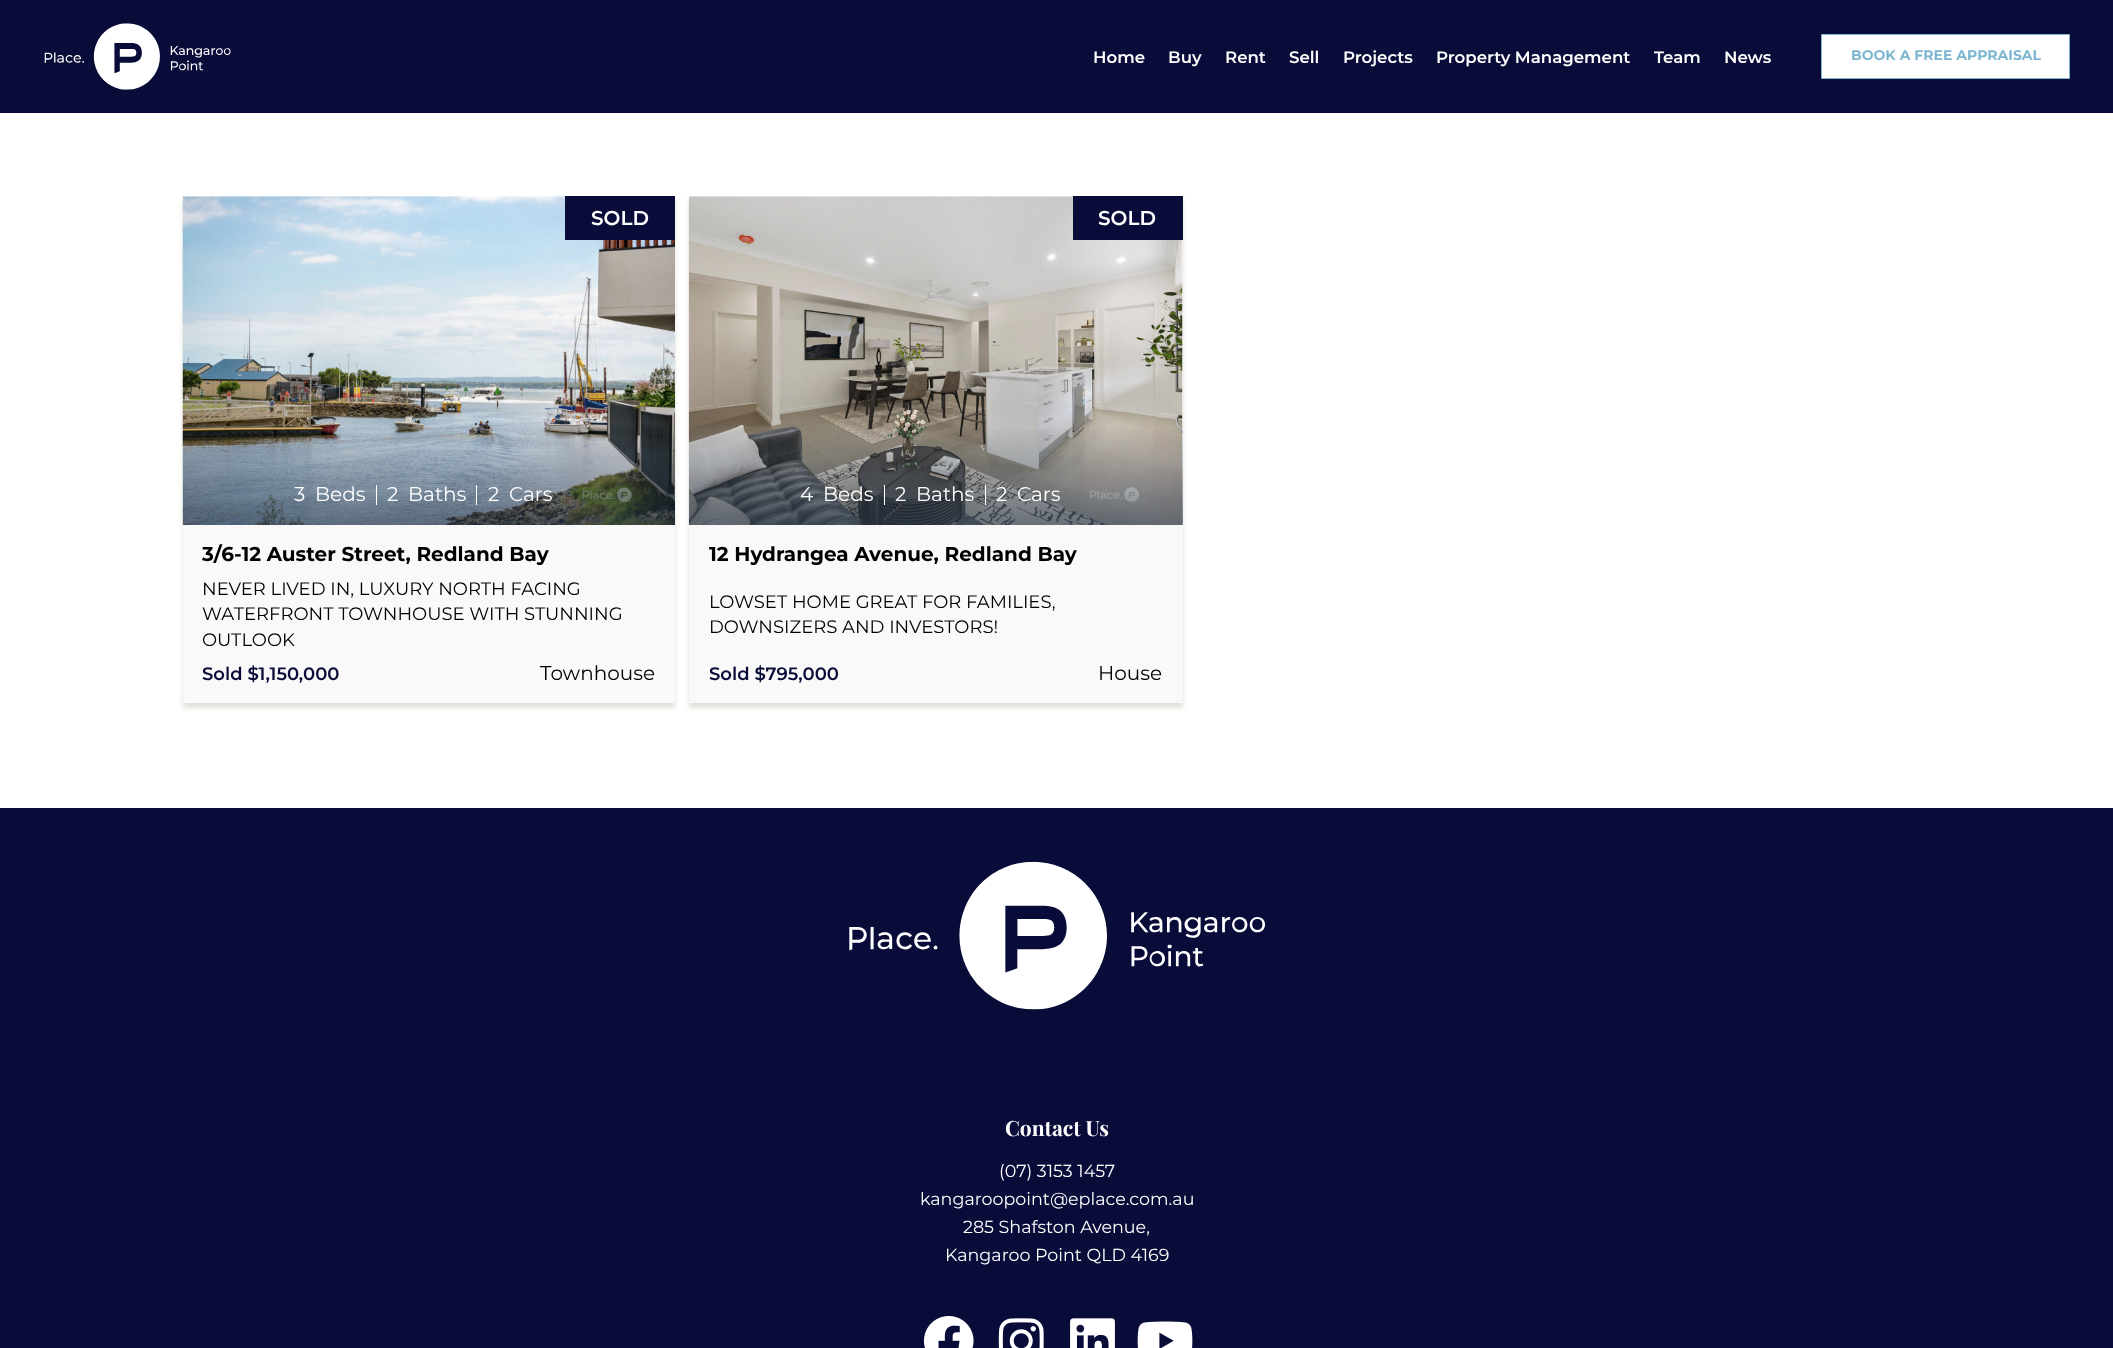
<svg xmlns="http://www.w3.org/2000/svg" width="2113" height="1348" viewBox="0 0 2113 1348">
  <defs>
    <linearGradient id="g1" gradientUnits="userSpaceOnUse" x1="936" y1="525" x2="936" y2="425"><stop offset="0" stop-color="#26384d" stop-opacity="0.6"/><stop offset="1" stop-color="#26384d" stop-opacity="0"/></linearGradient>
  </defs>
  <rect width="100%" height="100%" fill="#fff"/>
  <path d="M0 0h2113v113H0z" fill="#090b38"/>
  <image x="44" y="23" width="187" height="67" href="img/1.png"/>
  <path d="M1821.5 34.5h248v44H1821.5z" fill="#fff" stroke="#7db6d1"/>
  <path d="M183 201h492v507H183z" fill="#64644b33" filter="blur(2.5px)"/>
  <path d="M183 196h492v507H183z" fill="#f9f9f9"/>
  <image x="182" y="196" width="493" height="329" href="img/2.png"/>
  <path d="M565 196h110v44H565z" fill="#090c39"/>
  <path d="M376 485h1v20H376z" fill="#fff"/>
  <path d="M476 485h1v20H476z" fill="#fff"/>
  <path d="M689 201h494v507H689z" fill="#64644b33" filter="blur(2.5px)"/>
  <path d="M689 196h494v507H689z" fill="#f9f9f9"/>
  <image x="688" y="196" width="495" height="329" href="img/3.png"/>
  <path d="M1073 196h110v44H1073z" fill="#090c39"/>
  <path d="M689 429h494v96H689z" fill="url(#g1)"/>
  <path d="M884 485h1v20H884z" fill="#fff"/>
  <path d="M985 485h1v20H985z" fill="#fff"/>
  <path d="M0 808h2113v540H0z" fill="#090c39"/>
  <image x="849" y="861" width="416" height="149" href="img/4.png"/>
  <image x="923" y="1316" width="51" height="32" href="img/5.png"/>
  <image x="998" y="1318" width="46" height="30" href="img/6.png"/>
  <image x="1070" y="1318" width="45" height="30" href="img/7.png"/>
  <image x="1137" y="1321" width="56" height="27" href="img/8.png"/>
  <g font-family="Montserrat" font-size="16.6" font-weight="600" fill="#fff">
    <text x="1093" y="63">Home</text>
    <text x="1168" y="63">Buy</text>
    <text x="1225" y="63">Rent</text>
    <text x="1289" y="63">Sell</text>
    <text x="1343" y="63">Projects</text>
    <text x="1436" y="63">Property Management</text>
    <text x="1654" y="63">Team</text>
    <text x="1724" y="63">News</text>
  </g>
  <text x="1851" y="60" font-family="Montserrat" font-size="14" font-weight="bold" fill="#7db6d1">BOOK A FREE APPRAISAL</text>
  <text x="591" y="225" font-family="Montserrat" font-size="20" font-weight="600" fill="#fff">SOLD</text>
  <g font-family="Montserrat" font-size="20" fill="#fff">
    <text x="294" y="501">3</text>
    <text x="315" y="501">Beds</text>
    <text x="387" y="501">2</text>
    <text x="408" y="501">Baths</text>
    <text x="488" y="501">2</text>
    <text x="509" y="501">Cars</text>
  </g>
  <text x="202" y="561" font-family="Montserrat" font-size="20" font-weight="bold" fill="#000">3/6-12 Auster Street, Redland Bay</text>
  <g font-family="Montserrat" font-size="18" fill="#000">
    <text x="202" y="595">NEVER LIVED IN, LUXURY NORTH FACING</text>
    <text x="202" y="620">WATERFRONT TOWNHOUSE WITH STUNNING</text>
    <text x="202" y="646">OUTLOOK</text>
  </g>
  <text x="202" y="680" font-family="Montserrat" font-size="18" font-weight="600" fill="#090c39">Sold $1,150,000</text>
  <text x="540" y="680" font-family="Montserrat" font-size="20" fill="#000">Townhouse</text>
  <text x="1098" y="225" font-family="Montserrat" font-size="20" font-weight="600" fill="#fff">SOLD</text>
  <g font-family="Montserrat" font-size="20" fill="#fff">
    <text x="800" y="501">4</text>
    <text x="823" y="501">Beds</text>
    <text x="895" y="501">2</text>
    <text x="916" y="501">Baths</text>
    <text x="996" y="501">2</text>
    <text x="1017" y="501">Cars</text>
  </g>
  <text x="709" y="561" font-family="Montserrat" font-size="20" font-weight="bold" fill="#000">12 Hydrangea Avenue, Redland Bay</text>
  <g font-family="Montserrat" font-size="18" fill="#000">
    <text x="709" y="608">LOWSET HOME GREAT FOR FAMILIES,</text>
    <text x="709" y="633">DOWNSIZERS AND INVESTORS!</text>
  </g>
  <text x="709" y="680" font-family="Montserrat" font-size="18" font-weight="600" fill="#090c39">Sold $795,000</text>
  <text x="1098" y="680" font-family="Montserrat" font-size="20" fill="#000">House</text>
  <text x="1005" y="1136" font-family="Playfair Display" font-size="21" font-weight="bold" fill="#fff">Contact Us</text>
  <g font-family="Montserrat" font-size="17.5" fill="#fff">
    <text x="999" y="1177">(07) 3153 1457</text>
    <text x="920" y="1205">kangaroopoint@eplace.com.au</text>
    <text x="963" y="1233">285 Shafston Avenue,</text>
    <text x="945" y="1261">Kangaroo Point QLD 4169</text>
  </g>
</svg>
